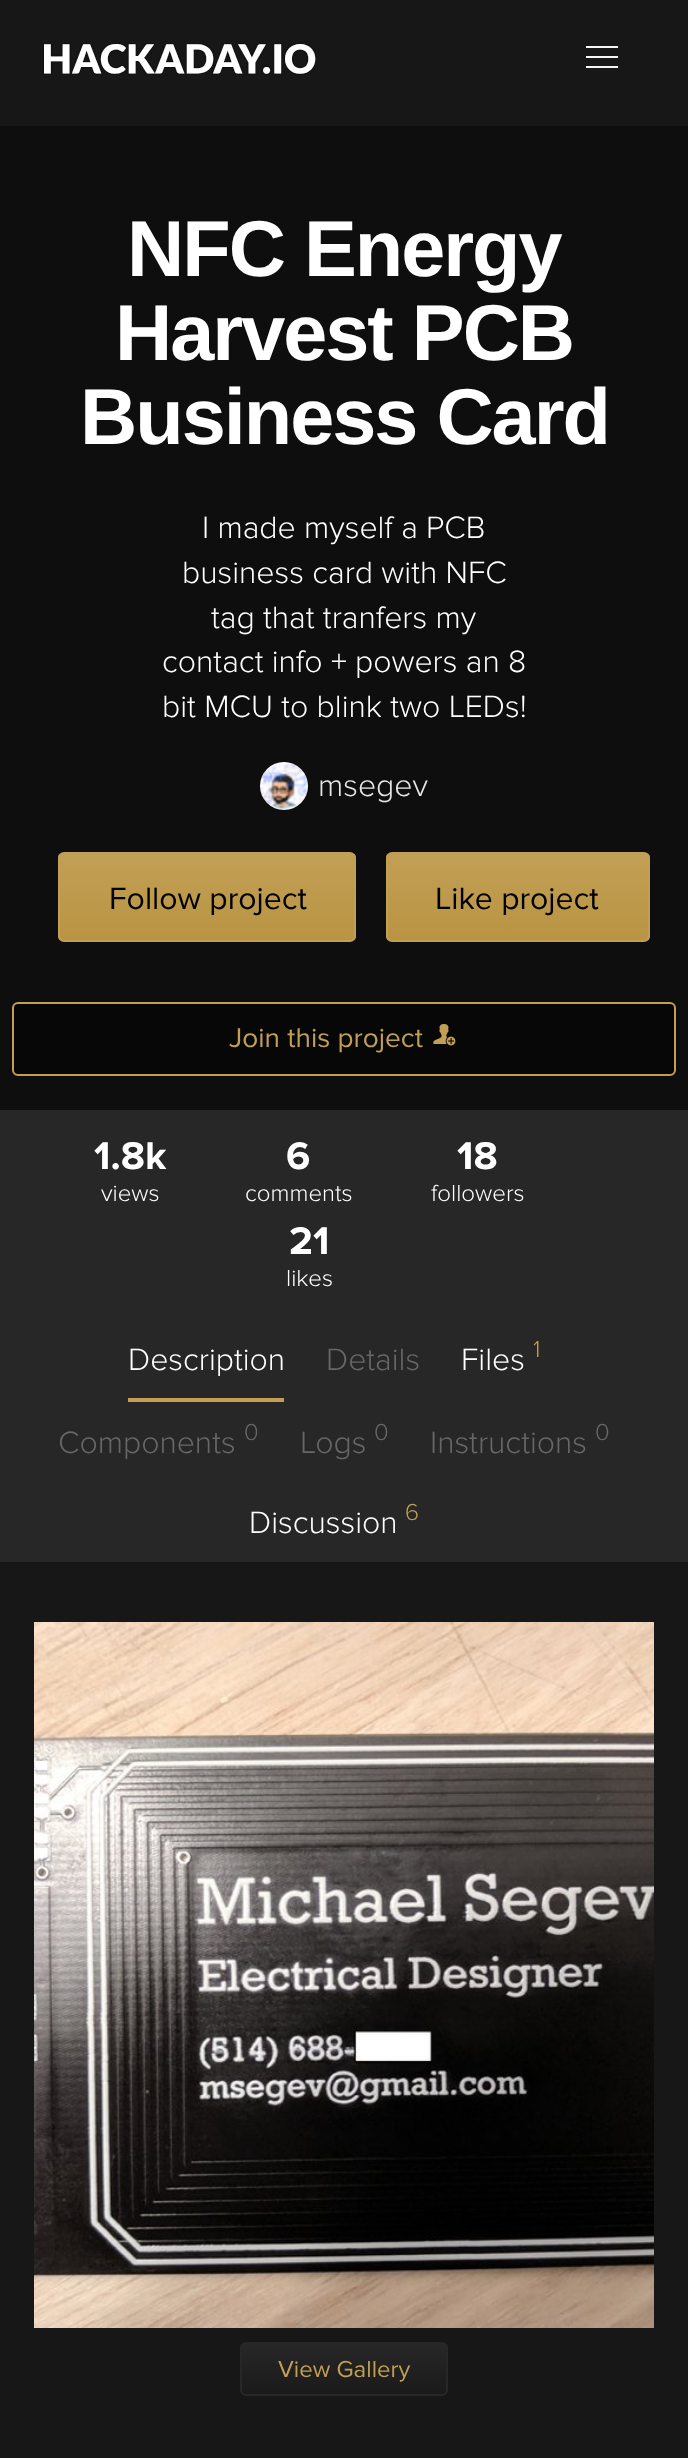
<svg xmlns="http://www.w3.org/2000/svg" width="688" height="2458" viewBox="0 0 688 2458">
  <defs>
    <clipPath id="clip1"><rect x="58" y="852" width="298" height="90" rx="6"/></clipPath>
    <linearGradient id="g1" gradientUnits="userSpaceOnUse" x1="207" y1="854" x2="207" y2="940"><stop offset="0" stop-color="#c19f54"/><stop offset="1" stop-color="#b99443"/></linearGradient>
    <clipPath id="clip2"><rect x="386" y="852" width="264" height="90" rx="6"/></clipPath>
    <linearGradient id="g2" gradientUnits="userSpaceOnUse" x1="518" y1="854" x2="518" y2="940"><stop offset="0" stop-color="#c19f54"/><stop offset="1" stop-color="#b99443"/></linearGradient>
    <clipPath id="clip3"><rect x="240" y="2342" width="208" height="54" rx="6"/></clipPath>
    <linearGradient id="g3" gradientUnits="userSpaceOnUse" x1="344" y1="2344" x2="344" y2="2394"><stop offset="0" stop-color="#272727"/><stop offset="1" stop-color="#1a1a1a"/></linearGradient>
  </defs>
  <rect width="100%" height="100%" fill="#171717"/>
  <image x="43" y="43" width="273" height="32" href="img/1.png"/>
  <path d="M586 46h32v2H586z" fill="#f5f5f5"/>
  <path d="M586 56h32v2H586z" fill="#f5f5f5"/>
  <path d="M586 66h32v2H586z" fill="#f5f5f5"/>
  <path d="M0 126h688v984H0z" fill="#0e0e0e"/>
  <image x="260" y="762" width="48" height="48" href="img/2.png"/>
  <g clip-path="url(#clip1)">
    <path d="M58 854h298v86H58z" fill="url(#g1)"/>
  </g>
  <rect x="59" y="853" width="296" height="88" rx="5" fill="none" stroke="#c19f54" stroke-width="2"/>
  <g clip-path="url(#clip2)">
    <path d="M386 854h264v86H386z" fill="url(#g2)"/>
  </g>
  <rect x="387" y="853" width="262" height="88" rx="5" fill="none" stroke="#c19f54" stroke-width="2"/>
  <rect x="13" y="1003" width="662" height="72" rx="5" fill="#070707" stroke="#c19f54" stroke-width="2"/>
  <image x="433" y="1023" width="23" height="23" href="img/3.png"/>
  <path d="M0 1110h688v452H0z" fill="#272727"/>
  <path d="M128 1398h156v4H128z" fill="#c19f54"/>
  <image x="34" y="1622" width="620" height="706" href="img/4.png"/>
  <g clip-path="url(#clip3)">
    <path d="M240 2344h208v50H240z" fill="url(#g3)"/>
  </g>
  <rect x="241" y="2343" width="206" height="52" rx="5" fill="none" stroke="#272727" stroke-width="2"/>
  <g font-family="Liberation Sans" font-size="79.25" font-weight="bold" letter-spacing="-2" fill="#fff">
    <text x="127" y="276">NFC Energy</text>
    <text x="115" y="360">Harvest PCB</text>
    <text x="80" y="444">Business Card</text>
  </g>
  <g font-family="Proxima Nova" font-size="32" font-weight="300" fill="#fff">
    <text x="202" y="538">I made myself a PCB</text>
    <text x="182" y="583">business card with NFC</text>
    <text x="211" y="628">tag that tranfers my</text>
    <text x="162" y="672">contact info + powers an 8</text>
    <text x="162" y="717">bit MCU to blink two LEDs!</text>
  </g>
  <text x="318" y="796" font-family="Proxima Nova" font-size="32" font-weight="300" fill="#e6e6e6">msegev</text>
  <g font-family="Proxima Nova" font-size="32" fill="#000">
    <text x="109" y="909">Follow project</text>
    <text x="435" y="909">Like project</text>
  </g>
  <text x="229" y="1047" font-family="Proxima Nova" font-size="28" fill="#c19f54">Join this project</text>
  <text x="94" y="1169" font-family="Proxima Nova" font-size="40" font-weight="bold" fill="#fff">1.8k</text>
  <text x="101" y="1201" font-family="Proxima Nova" font-size="24" font-weight="300" fill="#fff">views</text>
  <text x="286" y="1169" font-family="Proxima Nova" font-size="40" font-weight="bold" fill="#fff">6</text>
  <text x="245" y="1201" font-family="Proxima Nova" font-size="24" font-weight="300" fill="#fff">comments</text>
  <text x="457" y="1169" font-family="Proxima Nova" font-size="40" font-weight="bold" fill="#fff">18</text>
  <text x="431" y="1201" font-family="Proxima Nova" font-size="24" font-weight="300" fill="#fff">followers</text>
  <text x="289" y="1254" font-family="Proxima Nova" font-size="40" font-weight="bold" fill="#fff">21</text>
  <text x="286" y="1286" font-family="Proxima Nova" font-size="24" font-weight="300" fill="#fff">likes</text>
  <text x="128" y="1370" font-family="Proxima Nova" font-size="32" font-weight="300" fill="#fff">Description</text>
  <text x="326" y="1370" font-family="Proxima Nova" font-size="32" font-weight="300" fill="#676767">Details</text>
  <text x="461" y="1370" font-family="Proxima Nova" font-size="32" font-weight="300" fill="#fff">Files</text>
  <text x="533" y="1357" font-family="Proxima Nova" font-size="24" font-weight="300" fill="#c19f54">1</text>
  <text x="58" y="1453" font-family="Proxima Nova" font-size="32" font-weight="300" fill="#676767">Components</text>
  <text x="244" y="1440" font-family="Proxima Nova" font-size="24" font-weight="300" fill="#676767">0</text>
  <text x="300" y="1453" font-family="Proxima Nova" font-size="32" font-weight="300" fill="#676767">Logs</text>
  <text x="374" y="1440" font-family="Proxima Nova" font-size="24" font-weight="300" fill="#676767">0</text>
  <text x="430" y="1453" font-family="Proxima Nova" font-size="32" font-weight="300" fill="#676767">Instructions</text>
  <text x="595" y="1440" font-family="Proxima Nova" font-size="24" font-weight="300" fill="#676767">0</text>
  <text x="249" y="1533" font-family="Proxima Nova" font-size="32" font-weight="300" fill="#fff">Discussion</text>
  <text x="405" y="1520" font-family="Proxima Nova" font-size="24" font-weight="300" fill="#c19f54">6</text>
  <text x="278" y="2377" font-family="Proxima Nova" font-size="24" fill="#c19f54">View Gallery</text>
</svg>
